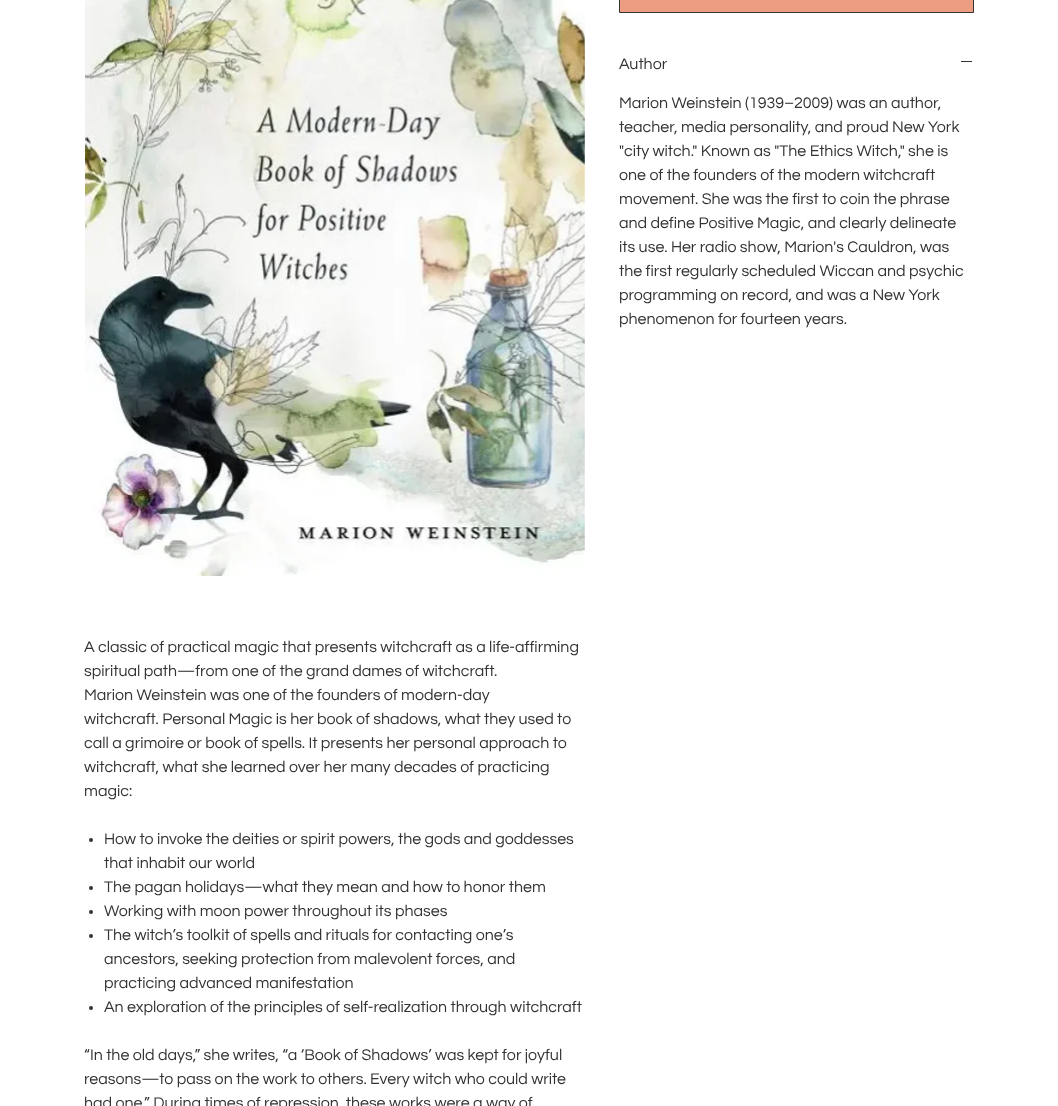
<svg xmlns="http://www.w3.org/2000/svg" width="1058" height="1106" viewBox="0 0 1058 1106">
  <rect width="100%" height="100%" fill="#fff"/>
  <path d="M619.5 -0.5h354v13H619.5z" fill="#eb9c81" stroke="#333"/>
  <path d="M961 61h11v1H961z" fill="#333"/>
  <image x="85" y="0" width="500" height="576" href="img/1.png"/>
  <circle cx="91" cy="840" r="2" fill="#333"/>
  <circle cx="91" cy="888" r="2" fill="#333"/>
  <circle cx="91" cy="912" r="2" fill="#333"/>
  <circle cx="91" cy="936" r="2" fill="#333"/>
  <circle cx="91" cy="1008" r="2" fill="#333"/>
  <g font-family="Questrial" font-size="16" fill="#333">
    <text x="619" y="69">Author</text>
    <text x="619" y="108">Marion Weinstein (1939–2009) was an author,</text>
    <text x="619" y="132">teacher, media personality, and proud New York</text>
    <text x="619" y="156">"city witch." Known as "The Ethics Witch," she is</text>
    <text x="619" y="180">one of the founders of the modern witchcraft</text>
    <text x="619" y="204">movement. She was the first to coin the phrase</text>
    <text x="619" y="228">and define Positive Magic, and clearly delineate</text>
    <text x="619" y="252">its use. Her radio show, Marion's Cauldron, was</text>
    <text x="619" y="276">the first regularly scheduled Wiccan and psychic</text>
    <text x="619" y="300">programming on record, and was a New York</text>
    <text x="619" y="324">phenomenon for fourteen years.</text>
    <text x="84" y="652">A classic of practical magic that presents witchcraft as a life-affirming</text>
    <text x="84" y="676">spiritual path—from one of the grand dames of witchcraft.</text>
    <text x="84" y="700">Marion Weinstein was one of the founders of modern-day</text>
    <text x="84" y="724">witchcraft. Personal Magic is her book of shadows, what they used to</text>
    <text x="84" y="748">call a grimoire or book of spells. It presents her personal approach to</text>
    <text x="84" y="772">witchcraft, what she learned over her many decades of practicing</text>
    <text x="84" y="796">magic:</text>
    <text x="104" y="844">How to invoke the deities or spirit powers, the gods and goddesses</text>
    <text x="104" y="868">that inhabit our world</text>
    <text x="104" y="892">The pagan holidays—what they mean and how to honor them</text>
    <text x="104" y="916">Working with moon power throughout its phases</text>
    <text x="104" y="940">The witch’s toolkit of spells and rituals for contacting one’s</text>
    <text x="104" y="964">ancestors, seeking protection from malevolent forces, and</text>
    <text x="104" y="988">practicing advanced manifestation</text>
    <text x="104" y="1012">An exploration of the principles of self-realization through witchcraft</text>
    <text x="84" y="1060">“In the old days,” she writes, “a ‘Book of Shadows’ was kept for joyful</text>
    <text x="84" y="1084">reasons—to pass on the work to others. Every witch who could write</text>
    <text x="84" y="1108">had one.” During times of repression, these works were a way of</text>
  </g>
</svg>
